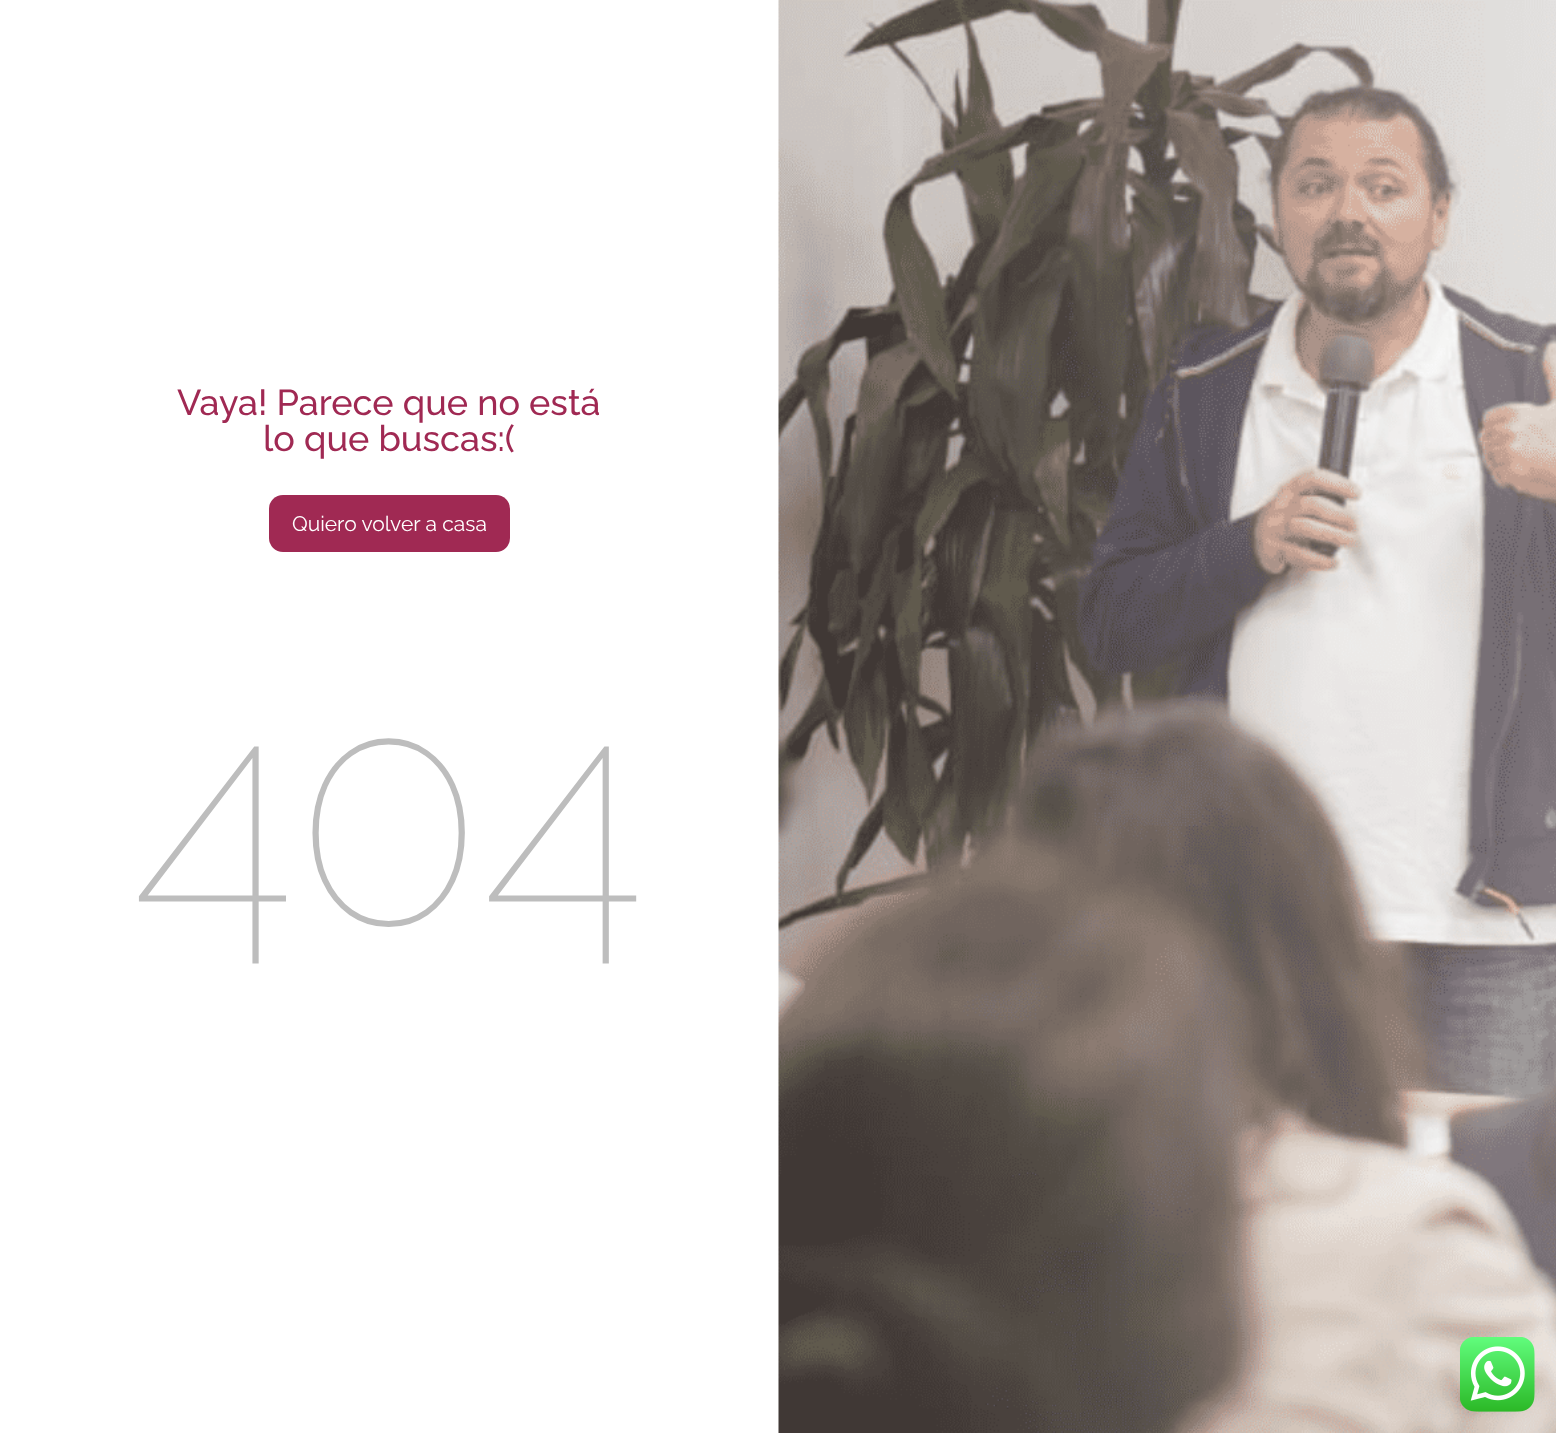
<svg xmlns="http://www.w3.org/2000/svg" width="1556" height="1433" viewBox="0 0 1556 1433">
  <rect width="100%" height="100%" fill="#fff"/>
  <rect x="269" y="495" width="241" height="57" rx="14" fill="#a02953"/>
  <image x="778" y="0" width="778" height="1433" href="img/1.png"/>
  <image x="1460" y="1337" width="75" height="75" href="img/2.png"/>
  <g font-family="Raleway" font-size="36" font-weight="500" fill="#a02953">
    <text x="177" y="415">Vaya! Parece que no está</text>
    <text x="263" y="451">lo que buscas:(</text>
  </g>
  <text x="292" y="531" font-family="Raleway" font-size="21" fill="#fff">Quiero volver a casa</text>
  <text x="133" y="924" font-family="Raleway" font-size="311" font-weight="100" fill="#bdbdbd">404</text>
</svg>
